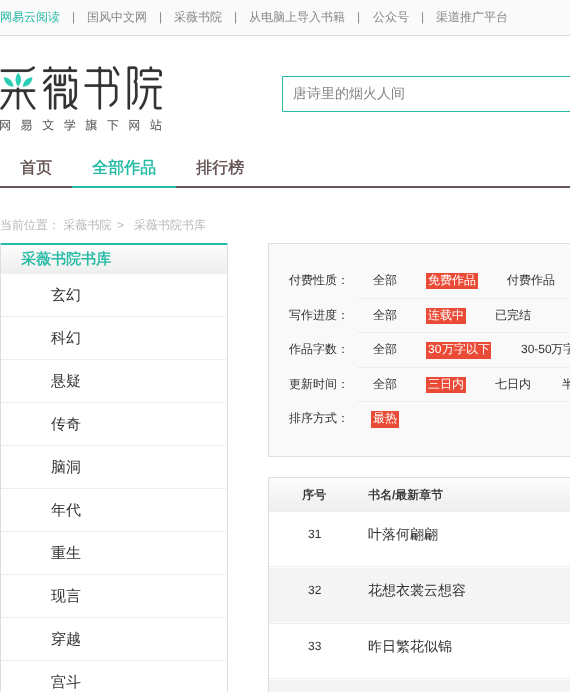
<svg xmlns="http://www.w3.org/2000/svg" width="570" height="692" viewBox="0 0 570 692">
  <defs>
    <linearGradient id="g1" gradientUnits="userSpaceOnUse" x1="1" y1="245" x2="1" y2="274"><stop offset="0" stop-color="#fcfcfc"/><stop offset="1" stop-color="#eee"/></linearGradient>
    <linearGradient id="g2" gradientUnits="userSpaceOnUse" x1="269" y1="478" x2="269" y2="512"><stop offset="0" stop-color="#fcfcfc"/><stop offset="1" stop-color="#eee"/></linearGradient>
  </defs>
  <rect width="100%" height="100%" fill="#fff"/>
  <path d="M0 0h570v35H0z" fill="#fafafa"/>
  <path d="M0 35h570v1H0z" fill="#dcdcdc"/>
  <image x="0" y="66" width="162" height="65" href="img/1.png"/>
  <path d="M282.5 76.5h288v35H282.5z" fill="none" stroke="#27bba6"/>
  <path d="M0 186h570v2H0z" fill="#665656"/>
  <path d="M72 186h104v2H72z" fill="#27bba6"/>
  <path d="M0 243H228L227 245H1Z" fill="#27bba6"/>
  <path d="M228 243V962L227 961V245Z" fill="#dcdddd"/>
  <path d="M0 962V243L1 245V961Z" fill="#dcdddd"/>
  <path d="M1 245h226v29H1z" fill="url(#g1)"/>
  <path d="M1 316.5H227" fill="none" stroke="#dedede" stroke-dasharray="1 1"/>
  <path d="M1 359.5H227" fill="none" stroke="#dedede" stroke-dasharray="1 1"/>
  <path d="M1 402.5H227" fill="none" stroke="#dedede" stroke-dasharray="1 1"/>
  <path d="M1 445.5H227" fill="none" stroke="#dedede" stroke-dasharray="1 1"/>
  <path d="M1 488.5H227" fill="none" stroke="#dedede" stroke-dasharray="1 1"/>
  <path d="M1 531.5H227" fill="none" stroke="#dedede" stroke-dasharray="1 1"/>
  <path d="M1 574.5H227" fill="none" stroke="#dedede" stroke-dasharray="1 1"/>
  <path d="M1 617.5H227" fill="none" stroke="#dedede" stroke-dasharray="1 1"/>
  <path d="M1 660.5H227" fill="none" stroke="#dedede" stroke-dasharray="1 1"/>
  <path d="M268.5 243.5h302v213H268.5z" fill="#f9f9f9" stroke="#dedede"/>
  <path d="M359 298.5H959" fill="none" stroke="#dedede" stroke-dasharray="1 1"/>
  <path d="M426 273h52v16H426z" fill="#ea4b36"/>
  <path d="M359 332.5H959" fill="none" stroke="#dedede" stroke-dasharray="1 1"/>
  <path d="M426 308h40v16H426z" fill="#ea4b36"/>
  <path d="M359 367.5H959" fill="none" stroke="#dedede" stroke-dasharray="1 1"/>
  <path d="M426 342h65v17H426z" fill="#ea4b36"/>
  <path d="M359 401.5H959" fill="none" stroke="#dedede" stroke-dasharray="1 1"/>
  <path d="M426 377h40v16H426z" fill="#ea4b36"/>
  <path d="M371 411h28v17H371z" fill="#ea4b36"/>
  <path d="M268.5 477.5h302v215H268.5z" fill="none" stroke="#dcdddd"/>
  <path d="M269 478h301v34H269z" fill="url(#g2)"/>
  <path d="M269 566.5H360" fill="none" stroke="#dedede" stroke-dasharray="1 1"/>
  <path d="M360 566.5H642" fill="none" stroke="#dedede" stroke-dasharray="1 1"/>
  <path d="M269 568h301v54H269z" fill="#f4f4f4"/>
  <path d="M269 623.5H360" fill="none" stroke="#dedede" stroke-dasharray="1 1"/>
  <path d="M269 678.5H360" fill="none" stroke="#dedede" stroke-dasharray="1 1"/>
  <path d="M360 623.5H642" fill="none" stroke="#dedede" stroke-dasharray="1 1"/>
  <path d="M360 678.5H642" fill="none" stroke="#dedede" stroke-dasharray="1 1"/>
  <path d="M269 680h301v12H269z" fill="#f4f4f4"/>
  <text x="0" y="21" font-family="WenQuanYi Zen Hei" font-size="12" font-weight="500" fill="#27bba6">网易云阅读</text>
  <text x="72" y="21" font-family="Liberation Sans" font-size="12" fill="#868686">|</text>
  <text x="87" y="21" font-family="WenQuanYi Zen Hei" font-size="12" font-weight="500" fill="#868686">国风中文网</text>
  <text x="159" y="21" font-family="Liberation Sans" font-size="12" fill="#868686">|</text>
  <text x="174" y="21" font-family="WenQuanYi Zen Hei" font-size="12" font-weight="500" fill="#868686">采薇书院</text>
  <text x="234" y="21" font-family="Liberation Sans" font-size="12" fill="#868686">|</text>
  <text x="249" y="21" font-family="WenQuanYi Zen Hei" font-size="12" font-weight="500" fill="#868686">从电脑上导入书籍</text>
  <text x="357" y="21" font-family="Liberation Sans" font-size="12" fill="#868686">|</text>
  <text x="373" y="21" font-family="WenQuanYi Zen Hei" font-size="12" font-weight="500" fill="#868686">公众号</text>
  <text x="421" y="21" font-family="Liberation Sans" font-size="12" fill="#868686">|</text>
  <text x="436" y="21" font-family="WenQuanYi Zen Hei" font-size="12" font-weight="500" fill="#868686">渠道推广平台</text>
  <text x="293" y="98" font-family="WenQuanYi Zen Hei" font-size="14" font-weight="500" fill="#868686">唐诗里的烟火人间</text>
  <text x="20" y="173" font-family="WenQuanYi Zen Hei" font-size="16" font-weight="bold" fill="#665656">首页</text>
  <text x="92" y="173" font-family="WenQuanYi Zen Hei" font-size="16" font-weight="bold" fill="#27bba6">全部作品</text>
  <text x="196" y="173" font-family="WenQuanYi Zen Hei" font-size="16" font-weight="bold" fill="#665656">排行榜</text>
  <text x="0" y="229" font-family="WenQuanYi Zen Hei" font-size="12" font-weight="500" fill="#b8b8b8">当前位置： 采薇书院</text>
  <text x="117" y="229" font-family="Liberation Sans" font-size="12" fill="#b8b8b8">&gt;</text>
  <text x="134" y="229" font-family="WenQuanYi Zen Hei" font-size="12" font-weight="500" fill="#b8b8b8">采薇书院书库</text>
  <text x="21" y="264" font-family="WenQuanYi Zen Hei" font-size="15" font-weight="bold" fill="#27bba6">采薇书院书库</text>
  <g font-family="WenQuanYi Zen Hei" font-size="15" font-weight="500" fill="#333">
    <text x="51" y="300">玄幻</text>
    <text x="51" y="343">科幻</text>
    <text x="51" y="386">悬疑</text>
    <text x="51" y="429">传奇</text>
    <text x="51" y="472">脑洞</text>
    <text x="51" y="515">年代</text>
    <text x="51" y="558">重生</text>
    <text x="51" y="601">现言</text>
    <text x="51" y="644">穿越</text>
    <text x="51" y="687">宫斗</text>
  </g>
  <g font-family="WenQuanYi Zen Hei" font-size="12" font-weight="500" fill="#333">
    <text x="289" y="284">付费性质：</text>
    <text x="373" y="284">全部</text>
  </g>
  <text x="428" y="284" font-family="WenQuanYi Zen Hei" font-size="12" font-weight="500" fill="#fff">免费作品</text>
  <g font-family="WenQuanYi Zen Hei" font-size="12" font-weight="500" fill="#333">
    <text x="507" y="284">付费作品</text>
    <text x="289" y="319">写作进度：</text>
    <text x="373" y="319">全部</text>
  </g>
  <text x="428" y="319" font-family="WenQuanYi Zen Hei" font-size="12" font-weight="500" fill="#fff">连载中</text>
  <g font-family="WenQuanYi Zen Hei" font-size="12" font-weight="500" fill="#333">
    <text x="495" y="319">已完结</text>
    <text x="289" y="353">作品字数：</text>
    <text x="373" y="353">全部</text>
  </g>
  <text x="428" y="353" font-family="Liberation Sans" font-size="12" fill="#fff">30</text>
  <text x="442" y="353" font-family="WenQuanYi Zen Hei" font-size="12" font-weight="500" fill="#fff">万字以下</text>
  <text x="521" y="353" font-family="Liberation Sans" font-size="12" fill="#333">30-50</text>
  <g font-family="WenQuanYi Zen Hei" font-size="12" font-weight="500" fill="#333">
    <text x="551" y="353">万字</text>
    <text x="289" y="388">更新时间：</text>
    <text x="373" y="388">全部</text>
  </g>
  <text x="428" y="388" font-family="WenQuanYi Zen Hei" font-size="12" font-weight="500" fill="#fff">三日内</text>
  <g font-family="WenQuanYi Zen Hei" font-size="12" font-weight="500" fill="#333">
    <text x="495" y="388">七日内</text>
    <text x="562" y="388">半</text>
    <text x="289" y="422">排序方式：</text>
  </g>
  <text x="373" y="422" font-family="WenQuanYi Zen Hei" font-size="12" font-weight="500" fill="#fff">最热</text>
  <g font-family="WenQuanYi Zen Hei" font-size="12" font-weight="bold" fill="#333">
    <text x="302" y="499">序号</text>
    <text x="368" y="499">书名</text>
  </g>
  <text x="392" y="499" font-family="Liberation Sans" font-size="12" font-weight="bold" fill="#333">/</text>
  <text x="395" y="499" font-family="WenQuanYi Zen Hei" font-size="12" font-weight="bold" fill="#333">最新章节</text>
  <text x="308" y="538" font-family="Liberation Sans" font-size="12" fill="#333">31</text>
  <text x="368" y="539" font-family="WenQuanYi Zen Hei" font-size="14" font-weight="500" fill="#333">叶落何翩翩</text>
  <text x="308" y="594" font-family="Liberation Sans" font-size="12" fill="#333">32</text>
  <text x="368" y="595" font-family="WenQuanYi Zen Hei" font-size="14" font-weight="500" fill="#333">花想衣裳云想容</text>
  <text x="308" y="650" font-family="Liberation Sans" font-size="12" fill="#333">33</text>
  <text x="368" y="651" font-family="WenQuanYi Zen Hei" font-size="14" font-weight="500" fill="#333">昨日繁花似锦</text>
</svg>
